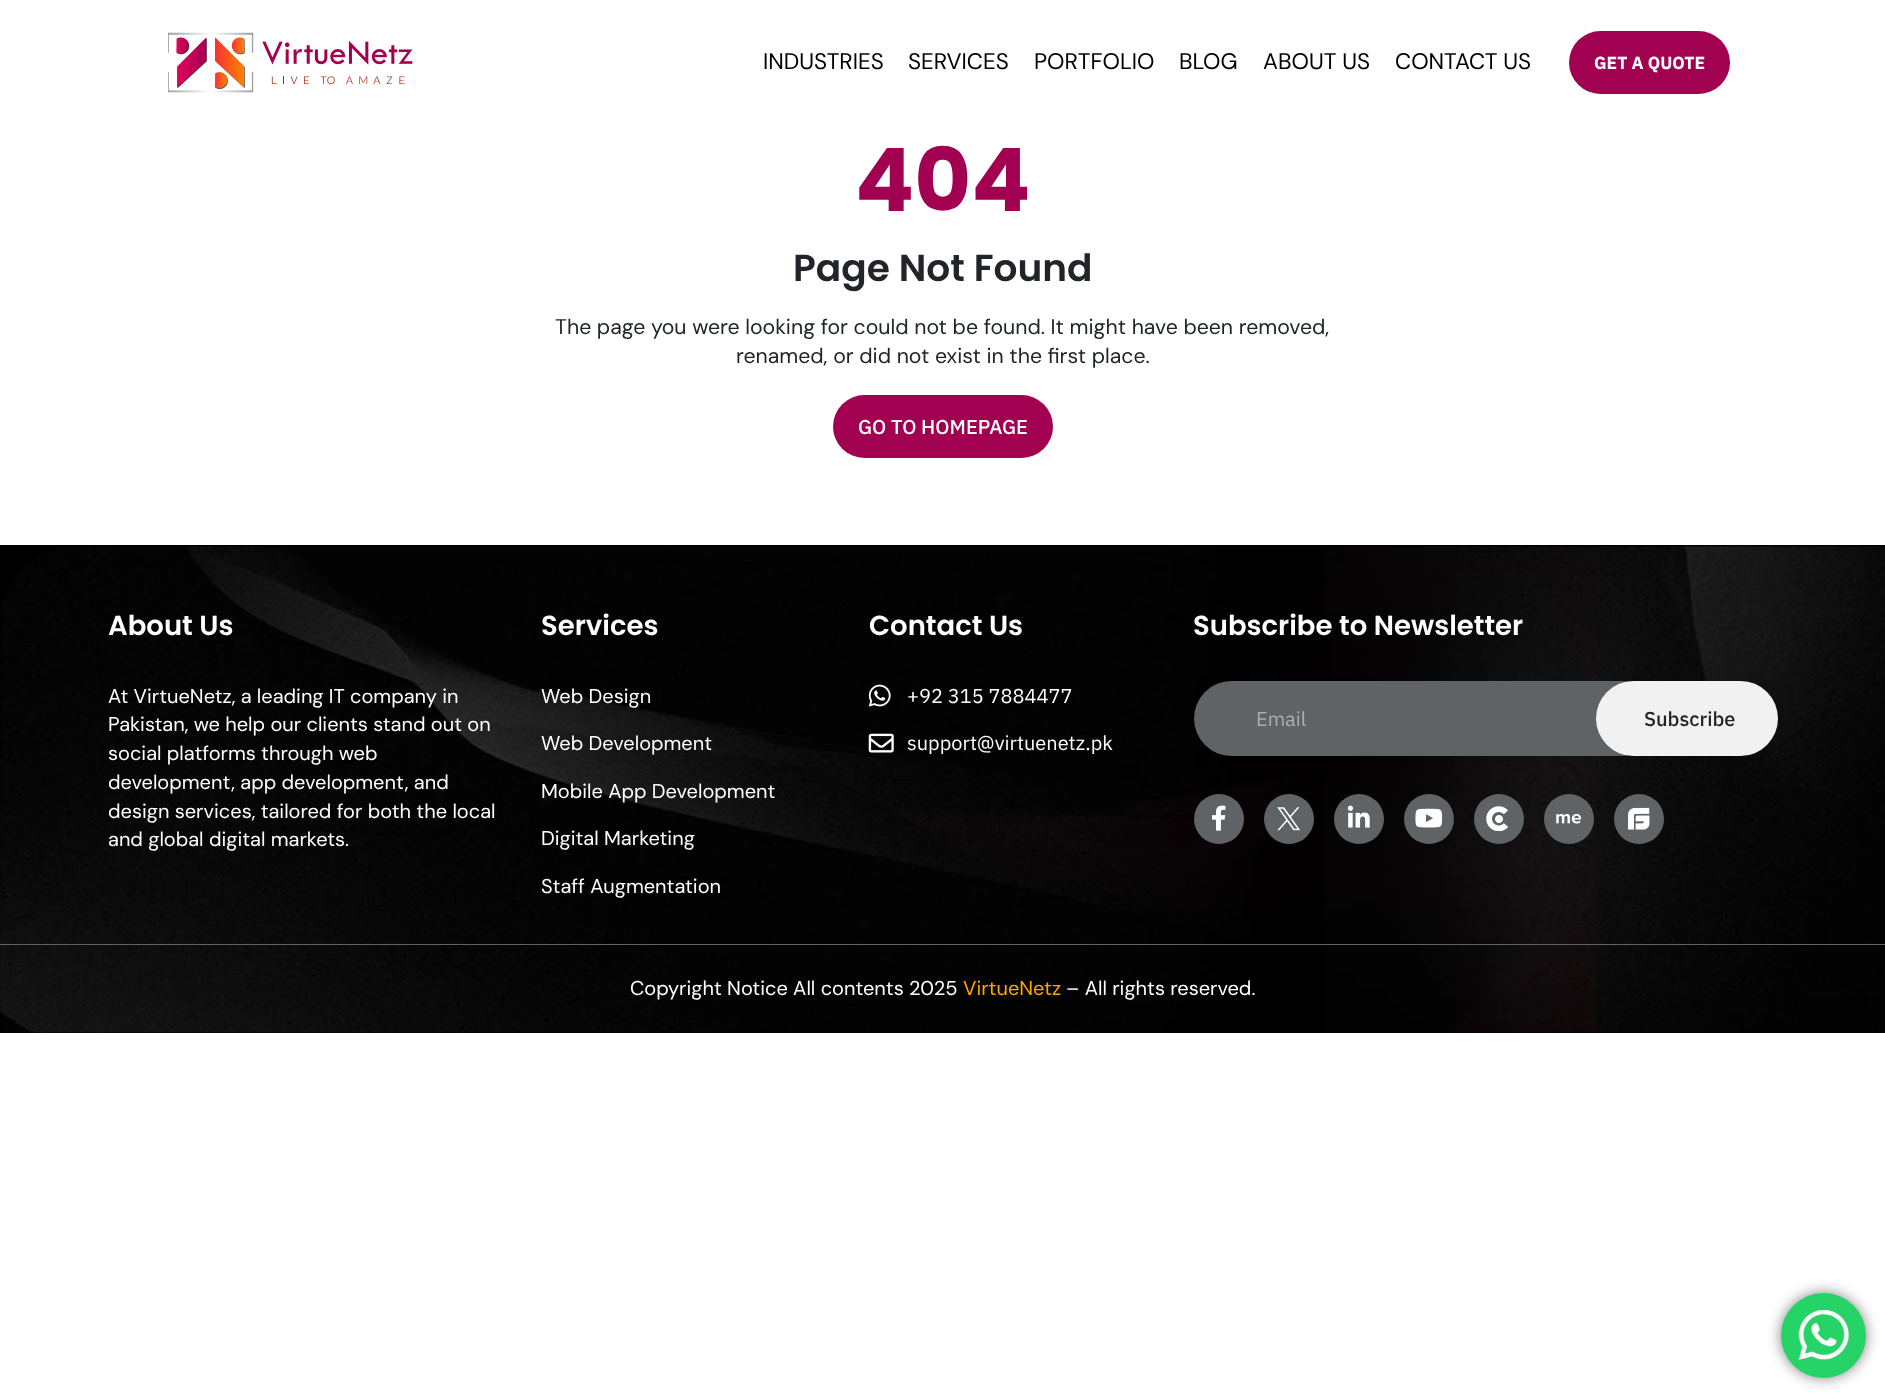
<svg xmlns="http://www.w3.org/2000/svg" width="1885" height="1396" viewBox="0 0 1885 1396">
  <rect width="100%" height="100%" fill="#fff"/>
  <image x="168" y="32" width="245" height="61" href="img/1.png"/>
  <rect x="1569" y="31" width="161" height="63" rx="31.5" fill="#a20050"/>
  <rect x="833" y="395" width="220" height="63" rx="31.5" fill="#a20050"/>
  <path d="M0 545h1885v488H0z" fill="#000"/>
  <image x="0" y="546" width="1885" height="487" href="img/2.png"/>
  <path d="M0 944h1885v1H0z" fill="#606365"/>
  <image x="868" y="684" width="23" height="23" href="img/3.png"/>
  <image x="868" y="733" width="26" height="20" href="img/4.png"/>
  <rect x="1194" y="681" width="466" height="75" rx="37.5" fill="#606365"/>
  <rect x="1596" y="681" width="182" height="75" rx="37.5" fill="#f1f1f1"/>
  <circle cx="1219" cy="819" r="25" fill="#606365"/>
  <image x="1212" y="805" width="14" height="26" href="img/5.png"/>
  <circle cx="1289" cy="819" r="25" fill="#606365"/>
  <image x="1277" y="807" width="24" height="24" href="img/6.png"/>
  <circle cx="1359" cy="819" r="25" fill="#606365"/>
  <image x="1347" y="805" width="23" height="23" href="img/7.png"/>
  <circle cx="1429" cy="819" r="25" fill="#606365"/>
  <image x="1415" y="808" width="28" height="20" href="img/8.png"/>
  <circle cx="1499" cy="819" r="25" fill="#606365"/>
  <image x="1486" y="806" width="22" height="25" href="img/9.png"/>
  <circle cx="1569" cy="819" r="25" fill="#606365"/>
  <image x="1556" y="814" width="25" height="10" href="img/10.png"/>
  <circle cx="1639" cy="819" r="25" fill="#606365"/>
  <image x="1628" y="807" width="22" height="23" href="img/11.png"/>
  <rect x="1781" y="1293" width="85" height="85" rx="42.5" fill="#00000080" filter="blur(7px)"/>
  <circle cx="1823.5" cy="1335.5" r="42.5" fill="#25d366"/>
  <image x="1798" y="1310" width="51" height="50" href="img/12.png"/>
  <g font-family="DM Sans" font-size="22.5" fill="#000">
    <text x="763" y="69">INDUSTRIES</text>
    <text x="908" y="69">SERVICES</text>
    <text x="1034" y="69">PORTFOLIO</text>
    <text x="1179" y="69">BLOG</text>
    <text x="1263" y="69">ABOUT US</text>
    <text x="1395" y="69">CONTACT US</text>
  </g>
  <text x="1594" y="69" font-family="IBM Plex Sans" font-size="17.5" font-weight="bold" fill="#fff">GET A QUOTE</text>
  <text x="855" y="211" font-family="Poppins" font-size="87.5" font-weight="bold" fill="#a20050">404</text>
  <text x="793" y="281" font-family="Poppins" font-size="37.5" font-weight="600" fill="#212529">Page Not Found</text>
  <g font-family="DM Sans" font-size="21.25" fill="#212529">
    <text x="555" y="334">The page you were looking for could not be found. It might have been removed,</text>
    <text x="736" y="363">renamed, or did not exist in the first place.</text>
  </g>
  <text x="858" y="434" font-family="IBM Plex Sans" font-size="20" font-weight="500" fill="#fff">GO TO HOMEPAGE</text>
  <text x="108" y="635" font-family="Poppins" font-size="27.5" font-weight="600" fill="#fff">About Us</text>
  <g font-family="DM Sans" font-size="20" fill="#fff">
    <text x="108" y="703">At VirtueNetz, a leading IT company in</text>
    <text x="108" y="731">Pakistan, we help our clients stand out on</text>
    <text x="108" y="760">social platforms through web</text>
    <text x="108" y="789">development, app development, and</text>
    <text x="108" y="818">design services, tailored for both the local</text>
    <text x="108" y="846">and global digital markets.</text>
  </g>
  <text x="541" y="635" font-family="Poppins" font-size="27.5" font-weight="600" fill="#fff">Services</text>
  <g font-family="DM Sans" font-size="20" fill="#fff">
    <text x="541" y="703">Web Design</text>
    <text x="541" y="750">Web Development</text>
    <text x="541" y="798">Mobile App Development</text>
    <text x="541" y="845">Digital Marketing</text>
    <text x="541" y="893">Staff Augmentation</text>
  </g>
  <text x="869" y="635" font-family="Poppins" font-size="27.5" font-weight="600" fill="#fff">Contact Us</text>
  <g font-family="IBM Plex Sans" font-size="20" fill="#fff">
    <text x="907" y="703">+92 315 7884477</text>
    <text x="907" y="750">support@virtuenetz.pk</text>
  </g>
  <text x="1193" y="635" font-family="Poppins" font-size="27.5" font-weight="600" fill="#fff">Subscribe to Newsletter</text>
  <text x="1256" y="726" font-family="IBM Plex Sans" font-size="20" fill="#acadae">Email</text>
  <text x="1644" y="726" font-family="IBM Plex Sans" font-size="20" font-weight="500" fill="#212529">Subscribe</text>
  <text x="630" y="995" font-family="DM Sans" font-size="20" fill="#fff">Copyright Notice All contents 2025</text>
  <text x="963" y="995" font-family="DM Sans" font-size="20" fill="#ffa500">VirtueNetz</text>
  <text x="1066" y="995" font-family="DM Sans" font-size="20" fill="#fff">– All rights reserved.</text>
</svg>
